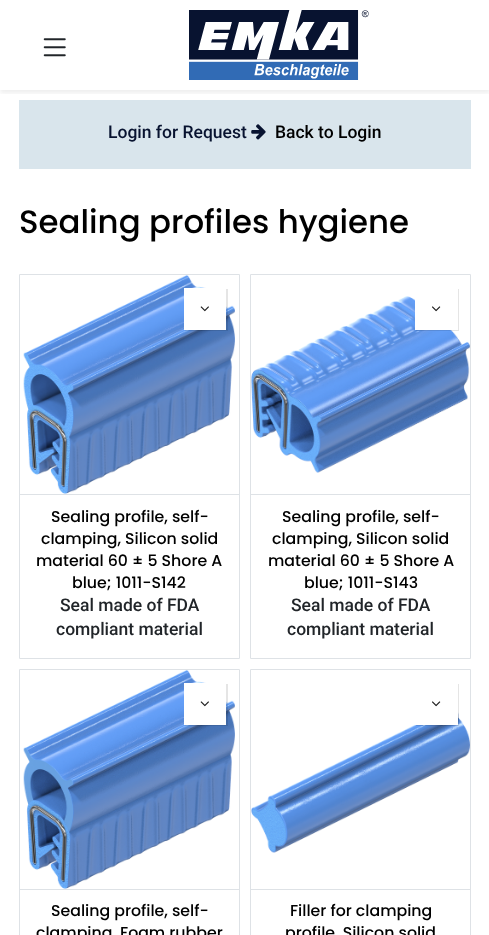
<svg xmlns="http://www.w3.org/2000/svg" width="489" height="935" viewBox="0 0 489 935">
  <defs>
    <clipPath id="clip1"><path d="M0 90h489v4H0z"/></clipPath>
  </defs>
  <rect width="100%" height="100%" fill="#fff"/>
  <path d="M19 100h452v69H19z" fill="#d9e5ec"/>
  <g clip-path="url(#clip1)">
    <path d="M0 3h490v90H0z" fill="#00000012" filter="blur(2.5px)"/>
  </g>
  <image x="43" y="38" width="23" height="19" href="img/1.png"/>
  <image x="189" y="10" width="180" height="70" href="img/2.png"/>
  <image x="251" y="124" width="15" height="16" href="img/3.png"/>
  <path d="M19.5 274.5h220v384H19.5z" fill="none" stroke="#dee2e6"/>
  <image x="23" y="275" width="212" height="219" href="img/4.png"/>
  <path d="M185 289h43v42H185z" fill="#0000001a" filter="blur(0.5px)"/>
  <path d="M184 288h42v42H184z" fill="#fff"/>
  <image x="200" y="306" width="9" height="6" href="img/5.png"/>
  <path d="M20 494h219v1H20z" fill="#dee2e6"/>
  <path d="M250.5 274.5h220v384H250.5z" fill="none" stroke="#dee2e6"/>
  <image x="251" y="296" width="219" height="177" href="img/7.png"/>
  <path d="M416 289h43v42H416z" fill="#0000001a" filter="blur(0.5px)"/>
  <path d="M415 288h43v42H415z" fill="#fff"/>
  <image x="432" y="306" width="9" height="6" href="img/6.png"/>
  <path d="M251 494h219v1H251z" fill="#dee2e6"/>
  <path d="M19.5 669.5h220v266H19.5z" fill="none" stroke="#dee2e6"/>
  <image x="23" y="670" width="212" height="219" href="img/8.png"/>
  <path d="M185 684h43v42H185z" fill="#0000001a" filter="blur(0.5px)"/>
  <path d="M184 683h42v42H184z" fill="#fff"/>
  <image x="200" y="701" width="9" height="6" href="img/5.png"/>
  <path d="M20 889h219v1H20z" fill="#dee2e6"/>
  <path d="M250.5 669.5h220v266H250.5z" fill="none" stroke="#dee2e6"/>
  <image x="251" y="712" width="219" height="141" href="img/9.png"/>
  <path d="M416 684h43v42H416z" fill="#0000001a" filter="blur(0.5px)"/>
  <path d="M415 683h43v42H415z" fill="#fff"/>
  <image x="432" y="701" width="9" height="6" href="img/6.png"/>
  <path d="M251 889h219v1H251z" fill="#dee2e6"/>
  <text x="108" y="138" font-family="Roboto" font-size="17.5" font-weight="500" fill="#081330">Login for Request</text>
  <text x="275" y="138" font-family="Roboto" font-size="17.5" font-weight="500" fill="#000">Back to Login</text>
  <text x="19" y="233" font-family="Poppins" font-size="32.4" font-weight="500" fill="#000">Sealing profiles hygiene</text>
  <g font-family="Poppins" font-size="15.75" font-weight="500" fill="#000">
    <text x="51" y="522">Sealing profile, self-</text>
    <text x="41" y="544">clamping, Silicon solid</text>
    <text x="36" y="566">material 60 ± 5 Shore A</text>
    <text x="72" y="588">blue; 1011-S142</text>
  </g>
  <g font-family="Roboto" font-size="17.5" font-weight="500" fill="#212529">
    <text x="60" y="611">Seal made of FDA</text>
    <text x="56" y="635">compliant material</text>
  </g>
  <g font-family="Poppins" font-size="15.75" font-weight="500" fill="#000">
    <text x="282" y="522">Sealing profile, self-</text>
    <text x="272" y="544">clamping, Silicon solid</text>
    <text x="268" y="566">material 60 ± 5 Shore A</text>
    <text x="304" y="588">blue; 1011-S143</text>
  </g>
  <g font-family="Roboto" font-size="17.5" font-weight="500" fill="#212529">
    <text x="291" y="611">Seal made of FDA</text>
    <text x="287" y="635">compliant material</text>
  </g>
  <g font-family="Poppins" font-size="15.75" font-weight="500" fill="#000">
    <text x="51" y="916">Sealing profile, self-</text>
    <text x="36" y="938">clamping, Foam rubber</text>
    <text x="290" y="916">Filler for clamping</text>
    <text x="285" y="938">profile, Silicon solid</text>
  </g>
</svg>
